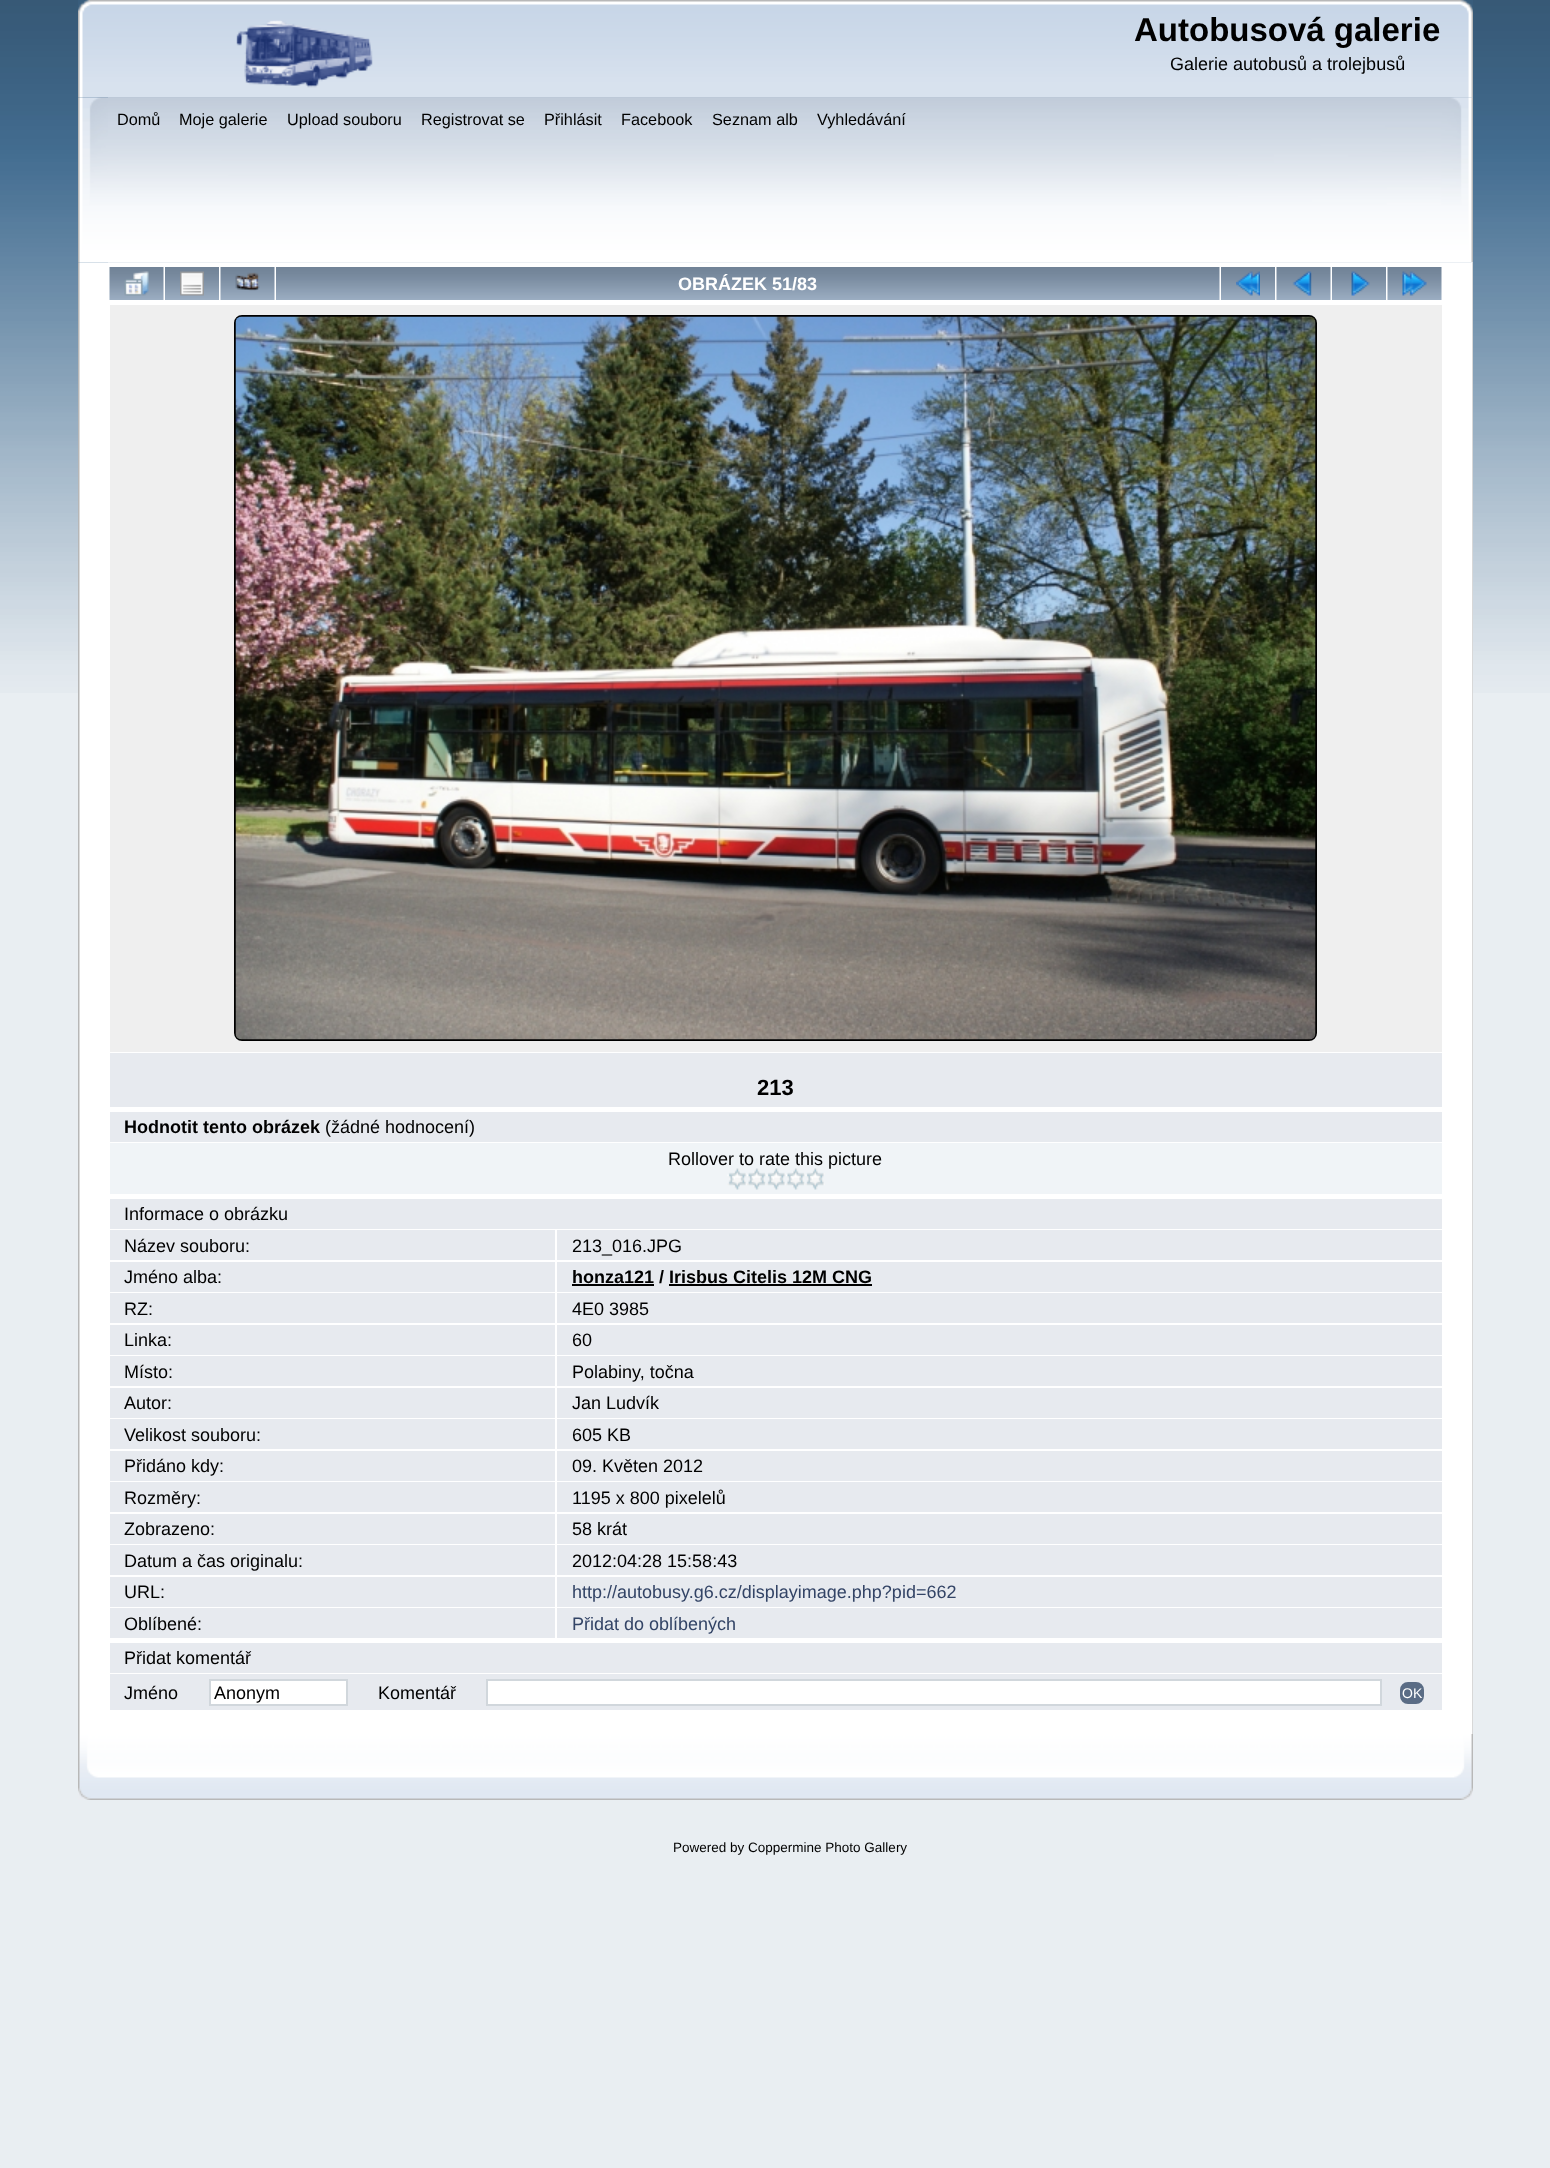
<svg xmlns="http://www.w3.org/2000/svg" width="1550" height="2168" viewBox="0 0 1550 2168">
  <rect width="100%" height="100%" fill="#e9eef2"/>
  <image x="0" y="0" width="1550" height="693" href="img/1.png"/>
  <image x="78" y="0" width="1395" height="98" href="img/2.png"/>
  <image x="108" y="0" width="1365" height="98" href="img/3.png"/>
  <image x="236" y="20" width="137" height="68" href="img/4.png"/>
  <image x="78" y="97" width="1395" height="166" href="img/5.png"/>
  <image x="108" y="97" width="1365" height="166" href="img/6.png"/>
  <image x="78" y="262" width="1395" height="1472" href="img/7.png"/>
  <image x="1471" y="262" width="2" height="1472" href="img/8.png"/>
  <image x="109" y="267" width="55" height="33" href="img/9.png"/>
  <image x="124" y="271" width="25" height="25" href="img/10.png"/>
  <image x="165" y="267" width="54" height="33" href="img/11.png"/>
  <image x="180" y="271" width="24" height="25" href="img/12.png"/>
  <image x="220" y="267" width="55" height="33" href="img/9.png"/>
  <image x="235" y="272" width="25" height="19" href="img/13.png"/>
  <image x="276" y="267" width="944" height="33" href="img/14.png"/>
  <image x="1221" y="267" width="54" height="33" href="img/11.png"/>
  <image x="1236" y="271" width="24" height="25" href="img/15.png"/>
  <image x="1276" y="267" width="55" height="33" href="img/9.png"/>
  <image x="1292" y="271" width="20" height="25" href="img/16.png"/>
  <image x="1332" y="267" width="54" height="33" href="img/11.png"/>
  <image x="1351" y="271" width="19" height="25" href="img/17.png"/>
  <image x="1387" y="267" width="55" height="33" href="img/9.png"/>
  <image x="1402" y="271" width="25" height="25" href="img/18.png"/>
  <path d="M110 305h1332v747H110z" fill="#efefef"/>
  <rect x="235" y="316" width="1081" height="724" rx="7" fill="none" stroke="#000" stroke-width="2"/>
  <image x="235" y="316" width="1081" height="724" href="img/19.png"/>
  <path d="M110 1053h1332v54H110z" fill="#e7eaef"/>
  <path d="M110 1112h1332v30H110z" fill="#e7eaef"/>
  <path d="M110 1143h1332v51H110z" fill="#f0f4f7"/>
  <path d="M110 1199h1332v30H110z" fill="#e7eaef"/>
  <path d="M110 1230h445v30H110z" fill="#e7eaef"/>
  <path d="M557 1230h885v30H557z" fill="#e7eaef"/>
  <path d="M110 1262h445v30H110z" fill="#e7eaef"/>
  <path d="M557 1262h885v30H557z" fill="#e7eaef"/>
  <path d="M572 1284h82v2H572z" fill="#000"/>
  <path d="M669 1284h203v2H669z" fill="#000"/>
  <path d="M110 1293h445v30H110z" fill="#e7eaef"/>
  <path d="M557 1293h885v30H557z" fill="#e7eaef"/>
  <path d="M110 1325h445v30H110z" fill="#e7eaef"/>
  <path d="M557 1325h885v30H557z" fill="#e7eaef"/>
  <path d="M110 1356h445v30H110z" fill="#e7eaef"/>
  <path d="M557 1356h885v30H557z" fill="#e7eaef"/>
  <path d="M110 1388h445v30H110z" fill="#e7eaef"/>
  <path d="M557 1388h885v30H557z" fill="#e7eaef"/>
  <path d="M110 1419h445v30H110z" fill="#e7eaef"/>
  <path d="M557 1419h885v30H557z" fill="#e7eaef"/>
  <path d="M110 1451h445v30H110z" fill="#e7eaef"/>
  <path d="M557 1451h885v30H557z" fill="#e7eaef"/>
  <path d="M110 1482h445v30H110z" fill="#e7eaef"/>
  <path d="M557 1482h885v30H557z" fill="#e7eaef"/>
  <path d="M110 1514h445v30H110z" fill="#e7eaef"/>
  <path d="M557 1514h885v30H557z" fill="#e7eaef"/>
  <path d="M110 1545h445v30H110z" fill="#e7eaef"/>
  <path d="M557 1545h885v30H557z" fill="#e7eaef"/>
  <path d="M110 1577h445v30H110z" fill="#e7eaef"/>
  <path d="M557 1577h885v30H557z" fill="#e7eaef"/>
  <path d="M110 1608h445v30H110z" fill="#e7eaef"/>
  <path d="M557 1608h885v30H557z" fill="#e7eaef"/>
  <path d="M110 1643h1332v30H110z" fill="#e7eaef"/>
  <path d="M110 1674h1332v36H110z" fill="#e7eaef"/>
  <path d="M210 1680h137v25H210z" fill="#fff" stroke="#d1d7dc" stroke-width="2"/>
  <path d="M487 1680h894v25H487z" fill="#fff" stroke="#d1d7dc" stroke-width="2"/>
  <rect x="1401" y="1683" width="22" height="20" rx="7" fill="#5a6c85" stroke="#5a6c85" stroke-width="2"/>
  <image x="78" y="1734" width="1376" height="66" href="img/24.png"/>
  <image x="1454" y="1734" width="19" height="66" href="img/25.png"/>
  <text x="1134" y="41" font-family="Liberation Sans" font-size="33" font-weight="bold" fill="#000">Autobusová galerie</text>
  <text x="1170" y="70" font-family="Liberation Sans" font-size="18" fill="#000">Galerie autobusů a trolejbusů</text>
  <g font-family="Liberation Sans" font-size="16.25" fill="#000">
    <text x="117" y="125">Domů</text>
    <text x="179" y="125">Moje galerie</text>
    <text x="287" y="125">Upload souboru</text>
    <text x="421" y="125">Registrovat se</text>
    <text x="544" y="125">Přihlásit</text>
    <text x="621" y="125">Facebook</text>
    <text x="712" y="125">Seznam alb</text>
    <text x="817" y="125">Vyhledávání</text>
  </g>
  <text x="678" y="290" font-family="Liberation Sans" font-size="18" font-weight="bold" fill="#fff">OBRÁZEK 51/83</text>
  <text x="757" y="1095" font-family="Liberation Sans" font-size="22" font-weight="bold" fill="#000">213</text>
  <text x="124" y="1133" font-family="Liberation Sans" font-size="18" font-weight="bold" fill="#000">Hodnotit tento obrázek</text>
  <g font-family="Liberation Sans" font-size="18" fill="#000">
    <text x="325" y="1133">(žádné hodnocení)</text>
    <text x="668" y="1165">Rollover to rate this picture</text>
  </g>
  <image x="727" y="1168" width="20" height="22" href="img/20.png"/>
  <image x="747" y="1168" width="19" height="22" href="img/21.png"/>
  <image x="766" y="1168" width="20" height="22" href="img/22.png"/>
  <image x="786" y="1168" width="19" height="22" href="img/23.png"/>
  <image x="805" y="1168" width="20" height="22" href="img/22.png"/>
  <g font-family="Liberation Sans" font-size="18" fill="#000">
    <text x="124" y="1220">Informace o obrázku</text>
    <text x="124" y="1252">Název souboru:</text>
    <text x="572" y="1252">213_016.JPG</text>
    <text x="124" y="1283">Jméno alba:</text>
  </g>
  <text x="572" y="1283" font-family="Liberation Sans" font-size="18" font-weight="bold" fill="#000">honza121 / Irisbus Citelis 12M CNG</text>
  <g font-family="Liberation Sans" font-size="18" fill="#000">
    <text x="124" y="1315">RZ:</text>
    <text x="572" y="1315">4E0 3985</text>
    <text x="124" y="1346">Linka:</text>
    <text x="572" y="1346">60</text>
    <text x="124" y="1378">Místo:</text>
    <text x="572" y="1378">Polabiny, točna</text>
    <text x="124" y="1409">Autor:</text>
    <text x="572" y="1409">Jan Ludvík</text>
    <text x="124" y="1441">Velikost souboru:</text>
    <text x="572" y="1441">605 KB</text>
    <text x="124" y="1472">Přidáno kdy:</text>
    <text x="572" y="1472">09. Květen 2012</text>
    <text x="124" y="1504">Rozměry:</text>
    <text x="572" y="1504">1195 x 800 pixelelů</text>
    <text x="124" y="1535">Zobrazeno:</text>
    <text x="572" y="1535">58 krát</text>
    <text x="124" y="1567">Datum a čas originalu:</text>
    <text x="572" y="1567">2012:04:28 15:58:43</text>
    <text x="124" y="1598">URL:</text>
  </g>
  <text x="572" y="1598" font-family="Liberation Sans" font-size="18" fill="#346">http://autobusy.g6.cz/displayimage.php?pid=662</text>
  <text x="124" y="1630" font-family="Liberation Sans" font-size="18" fill="#000">Oblíbené:</text>
  <text x="572" y="1630" font-family="Liberation Sans" font-size="18" fill="#346">Přidat do oblíbených</text>
  <g font-family="Liberation Sans" font-size="18" fill="#000">
    <text x="124" y="1664">Přidat komentář</text>
    <text x="124" y="1699">Jméno</text>
    <text x="214" y="1699">Anonym</text>
    <text x="378" y="1699">Komentář</text>
  </g>
  <text x="1402" y="1698" font-family="Liberation Sans" font-size="14" fill="#fff">OK</text>
  <text x="673" y="1852" font-family="Liberation Sans" font-size="13.5" fill="#000">Powered by Coppermine Photo Gallery</text>
</svg>
